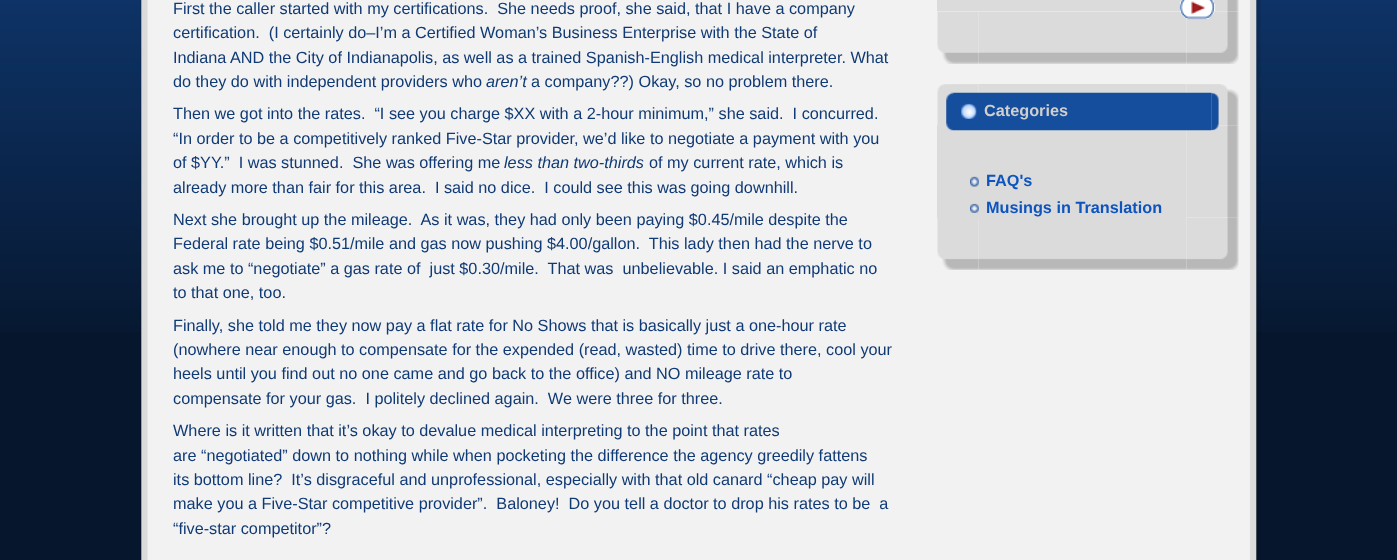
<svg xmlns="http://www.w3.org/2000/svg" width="1397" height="560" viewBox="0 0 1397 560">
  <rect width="100%" height="100%" fill="#06162d"/>
  <image x="0" y="0" width="1397" height="332" href="img/1.png"/>
  <image x="140" y="0" width="45" height="560" href="img/2.png"/>
  <path d="M185 0h1028v560H185z" fill="#f2f2f2"/>
  <image x="1213" y="0" width="48" height="560" href="img/3.png"/>
  <path d="M937 0h245v11H937z" fill="#dbdbdb"/>
  <image x="1186" y="11" width="53" height="53" href="img/8.png"/>
  <image x="1212" y="0" width="27" height="12" href="img/5.png"/>
  <image x="979" y="11" width="207" height="53" href="img/7.png"/>
  <image x="1179" y="0" width="37" height="20" href="img/4.png"/>
  <image x="937" y="11" width="42" height="53" href="img/6.png"/>
  <image x="937" y="84" width="42" height="41" href="img/9.png"/>
  <path d="M979 84h207v9H979z" fill="#dbdbdb"/>
  <image x="1186" y="84" width="53" height="42" href="img/10.png"/>
  <path d="M937 125h42v93H937z" fill="#dbdbdb"/>
  <image x="1186" y="217" width="53" height="53" href="img/19.png"/>
  <image x="1186" y="125" width="53" height="93" href="img/16.png"/>
  <path d="M979 130h207v88H979z" fill="#dbdbdb"/>
  <image x="946" y="92" width="266" height="39" href="img/11.png"/>
  <image x="1211" y="92" width="8" height="39" href="img/12.png"/>
  <image x="961" y="103" width="16" height="16" href="img/13.png"/>
  <image x="970" y="176" width="9" height="11" href="img/14.png"/>
  <image x="970" y="203" width="9" height="10" href="img/15.png"/>
  <image x="937" y="218" width="42" height="52" href="img/17.png"/>
  <image x="979" y="218" width="207" height="52" href="img/18.png"/>
  <g font-family="Liberation Sans" font-size="16.25" fill="#103a75">
    <text x="173" y="14" xml:space="preserve">First the caller started with my certifications.  She needs proof, she said, that I have a company</text>
    <text x="173" y="38" xml:space="preserve">certification.  (I certainly do–I’m a Certified Woman’s Business Enterprise with the State of</text>
    <text x="173" y="63">Indiana AND the City of Indianapolis, as well as a trained Spanish-English medical interpreter. What</text>
    <text x="173" y="87">do they do with independent providers who</text>
  </g>
  <text x="486" y="87" font-family="Liberation Sans" font-size="16.25" font-style="italic" fill="#103a75">aren’t</text>
  <g font-family="Liberation Sans" font-size="16.25" fill="#103a75">
    <text x="531" y="87">a company??) Okay, so no problem there.</text>
    <text x="173" y="119" xml:space="preserve">Then we got into the rates.  “I see you charge $XX with a 2-hour minimum,” she said.  I concurred.</text>
    <text x="173" y="144">“In order to be a competitively ranked Five-Star provider, we’d like to negotiate a payment with you</text>
    <text x="173" y="168" xml:space="preserve">of $YY.”  I was stunned.  She was offering me</text>
  </g>
  <text x="504" y="168" font-family="Liberation Sans" font-size="16.25" font-style="italic" fill="#103a75">less than two-thirds</text>
  <g font-family="Liberation Sans" font-size="16.25" fill="#103a75">
    <text x="649" y="168">of my current rate, which is</text>
    <text x="173" y="193" xml:space="preserve">already more than fair for this area.  I said no dice.  I could see this was going downhill.</text>
    <text x="173" y="225" xml:space="preserve">Next she brought up the mileage.  As it was, they had only been paying $0.45/mile despite the</text>
    <text x="173" y="249" xml:space="preserve">Federal rate being $0.51/mile and gas now pushing $4.00/gallon.  This lady then had the nerve to</text>
    <text x="173" y="274" xml:space="preserve">ask me to “negotiate” a gas rate of  just $0.30/mile.  That was  unbelievable. I said an emphatic no</text>
    <text x="173" y="298">to that one, too.</text>
    <text x="173" y="331">Finally, she told me they now pay a flat rate for No Shows that is basically just a one-hour rate</text>
    <text x="173" y="355">(nowhere near enough to compensate for the expended (read, wasted) time to drive there, cool your</text>
    <text x="173" y="379">heels until you find out no one came and go back to the office) and NO mileage rate to</text>
    <text x="173" y="404" xml:space="preserve">compensate for your gas.  I politely declined again.  We were three for three.</text>
    <text x="173" y="436">Where is it written that it’s okay to devalue medical interpreting to the point that rates</text>
    <text x="173" y="461">are “negotiated” down to nothing while when pocketing the difference the agency greedily fattens</text>
    <text x="173" y="485" xml:space="preserve">its bottom line?  It’s disgraceful and unprofessional, especially with that old canard “cheap pay will</text>
    <text x="173" y="509" xml:space="preserve">make you a Five-Star competitive provider”.  Baloney!  Do you tell a doctor to drop his rates to be  a</text>
    <text x="173" y="534">“five-star competitor”?</text>
  </g>
  <text x="984" y="116" font-family="Liberation Sans" font-size="16.25" font-weight="bold" fill="#cfcfcf">Categories</text>
  <g font-family="Liberation Sans" font-size="16.25" font-weight="bold" fill="#0e54be">
    <text x="986" y="186">FAQ's</text>
    <text x="986" y="213">Musings in Translation</text>
  </g>
</svg>
